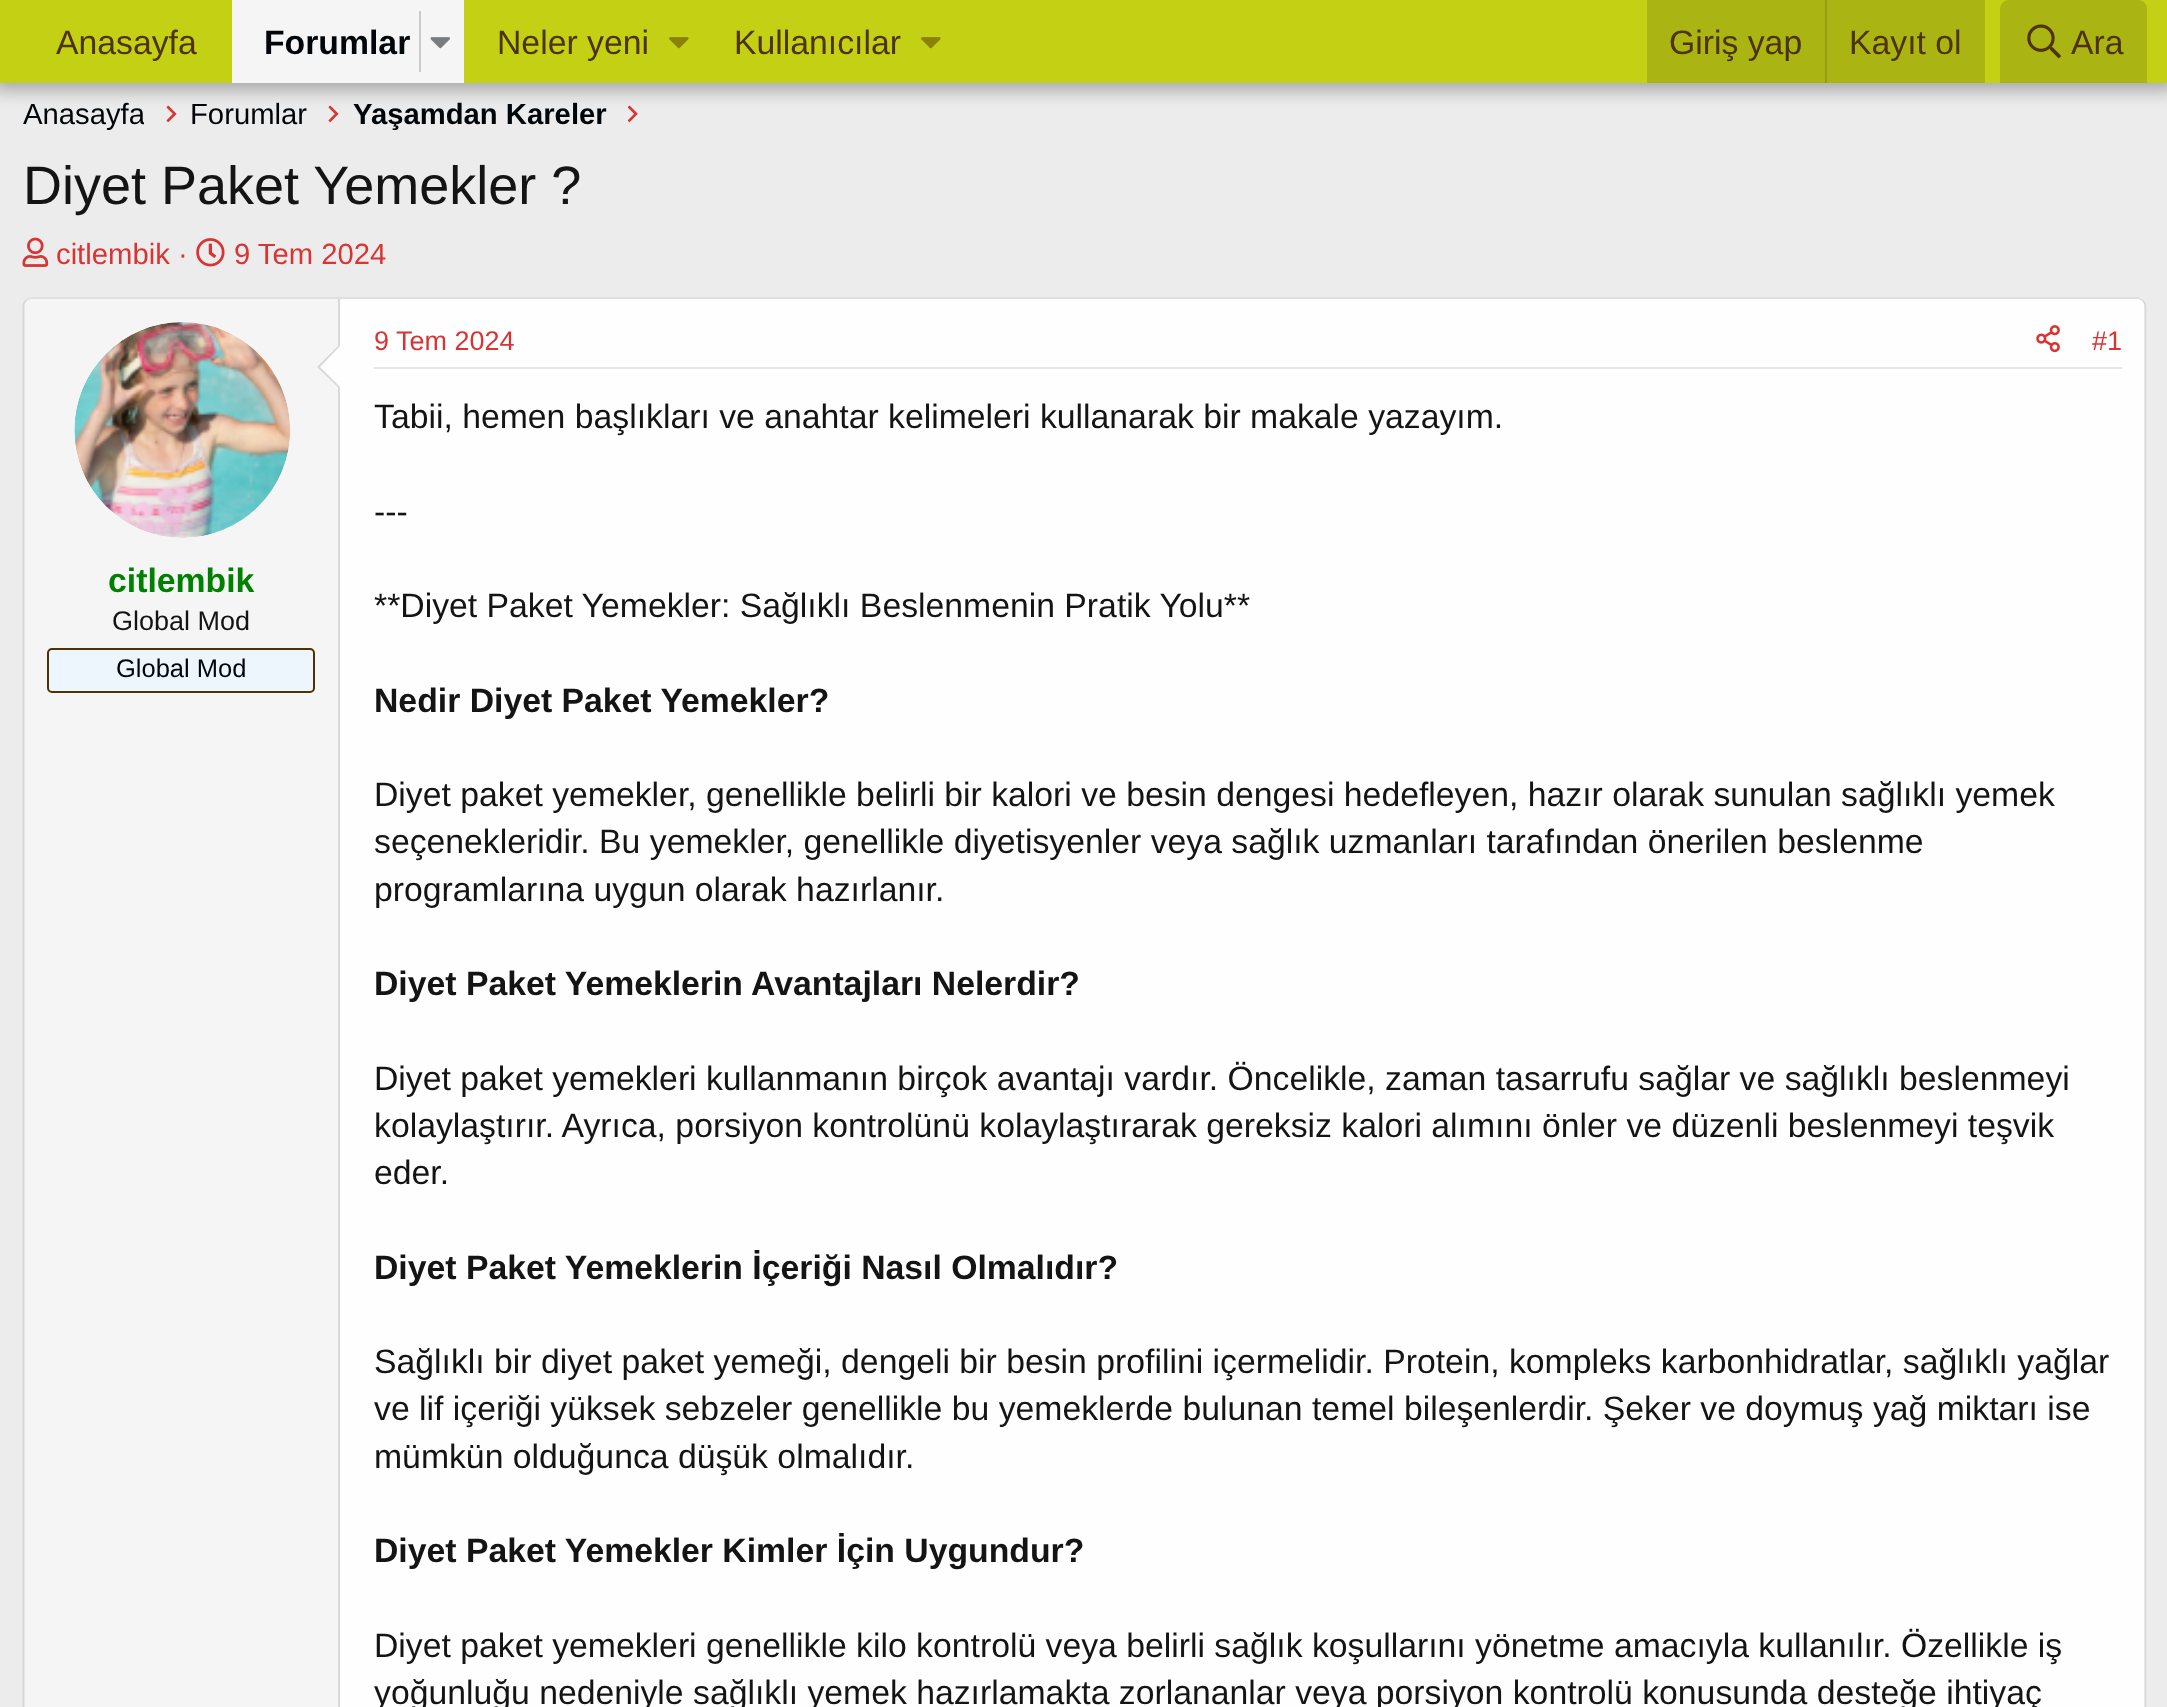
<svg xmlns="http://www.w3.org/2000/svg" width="2167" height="1707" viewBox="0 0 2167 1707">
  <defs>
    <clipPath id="clip1"><path d="M23 92h121v45H23z"/></clipPath>
  </defs>
  <rect width="100%" height="100%" fill="#ececec"/>
  <image x="166" y="105" width="11" height="18" href="img/4.png"/>
  <image x="328" y="105" width="11" height="18" href="img/4.png"/>
  <image x="627" y="105" width="11" height="18" href="img/5.png"/>
  <path d="M-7 -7h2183v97H-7z" fill="#0000004d" filter="blur(9px)"/>
  <path d="M0 0h2167v83H0z" fill="#c4d013"/>
  <path d="M232 0h232v83H232z" fill="#f5f5f5"/>
  <path d="M419 11h2v61H419z" fill="#cacbcc"/>
  <image x="430" y="37" width="20" height="12" href="img/1.png"/>
  <image x="669" y="37" width="20" height="12" href="img/2.png"/>
  <image x="921" y="37" width="20" height="12" href="img/2.png"/>
  <path d="M1647 0h338v83H1647z" fill="#aab413"/>
  <path d="M1825 0h2v83H1825z" fill="#949c13"/>
  <path d="M2009 0H2138C2143 0 2147 4 2147 9V83H2000V9C2000 4 2004 0 2009 0Z" fill="#aab413"/>
  <image x="2027" y="24" width="34" height="35" href="img/3.png"/>
  <image x="22" y="237" width="27" height="30" href="img/6.png"/>
  <image x="196" y="238" width="29" height="29" href="img/7.png"/>
  <rect x="23" y="297" width="2124" height="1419" rx="9" fill="#fefefe"/>
  <path d="M26 300.5C27.5 299 29.5 298 31.5 298H2137.5C2139.5 298 2141.5 299 2143 300.5" fill="none" stroke="#dfdfdf" stroke-width="2.2"/>
  <path d="M2143 300.5C2144.5 302 2145.5 304 2145.5 306V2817C2145.5 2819 2144.5 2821 2143 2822.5" fill="none" stroke="#d8d8d8" stroke-width="2.2"/>
  <path d="M26 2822.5C24.5 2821 23.5 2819 23.5 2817V306C23.5 304 24.5 302 26 300.5" fill="none" stroke="#d8d8d8" stroke-width="2.2"/>
  <path d="M32 299H340V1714H32C28 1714 25 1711 25 1707V306C25 302 28 299 32 299Z" fill="#f5f5f5"/>
  <path d="M338 299h2v1408H338z" fill="#d8d8d8"/>
  <circle cx="182" cy="430" r="108" fill="#fefefe"/>
  <image x="74" y="322" width="216" height="216" href="img/8.png"/>
  <path d="M340 344V389L317 367Z" fill="#d8d8d8"/>
  <path d="M340 346V387L320 367Z" fill="#fefefe"/>
  <rect x="48" y="649" width="266" height="43" rx="4" fill="#edf6fd" stroke="#4d3302" stroke-width="2"/>
  <path d="M374 367h1748v2H374z" fill="#e7e7e7"/>
  <image x="2036" y="325" width="24" height="28" href="img/9.png"/>
  <text x="56" y="54" font-family="Liberation Sans" font-size="33.75" fill="#4d3302">Anasayfa</text>
  <text x="264" y="54" font-family="Liberation Sans" font-size="33.75" font-weight="bold" fill="#00060a">Forumlar</text>
  <g font-family="Liberation Sans" font-size="33.75" fill="#4d3302">
    <text x="497" y="54">Neler yeni</text>
    <text x="734" y="54">Kullanıcılar</text>
    <text x="1669" y="54">Giriş yap</text>
    <text x="1849" y="54">Kayıt ol</text>
    <text x="2071" y="54">Ara</text>
  </g>
  <g clip-path="url(#clip1)">
    <text x="23" y="124" font-family="Liberation Sans" font-size="29.25" fill="#00060a">Anasayfa</text>
  </g>
  <text x="190" y="124" font-family="Liberation Sans" font-size="29.25" fill="#00060a">Forumlar</text>
  <text x="353" y="124" font-family="Liberation Sans" font-size="29.25" font-weight="bold" fill="#00060a">Yaşamdan Kareler</text>
  <text x="23" y="204" font-family="Liberation Sans" font-size="54" fill="#141414">Diyet Paket Yemekler ?</text>
  <g font-family="Liberation Sans" font-size="29.25" fill="#d83434">
    <text x="56" y="264">citlembik ·</text>
    <text x="234" y="264">9 Tem 2024</text>
  </g>
  <text x="108" y="592" font-family="Liberation Sans" font-size="33.75" font-weight="bold" fill="#008000">citlembik</text>
  <text x="112" y="630" font-family="Liberation Sans" font-size="27" fill="#141414">Global Mod</text>
  <text x="116" y="677" font-family="Liberation Sans" font-size="25.5" fill="#00060a">Global Mod</text>
  <g font-family="Liberation Sans" font-size="27" fill="#d83434">
    <text x="374" y="350">9 Tem 2024</text>
    <text x="2092" y="350">#1</text>
  </g>
  <g font-family="Liberation Sans" font-size="33.75" fill="#141414">
    <text x="374" y="428">Tabii, hemen başlıkları ve anahtar kelimeleri kullanarak bir makale yazayım.</text>
    <text x="374" y="523">---</text>
    <text x="374" y="617">**Diyet Paket Yemekler: Sağlıklı Beslenmenin Pratik Yolu**</text>
  </g>
  <text x="374" y="712" font-family="Liberation Sans" font-size="33.75" font-weight="bold" fill="#141414">Nedir Diyet Paket Yemekler?</text>
  <g font-family="Liberation Sans" font-size="33.75" fill="#141414">
    <text x="374" y="806">Diyet paket yemekler, genellikle belirli bir kalori ve besin dengesi hedefleyen, hazır olarak sunulan sağlıklı yemek</text>
    <text x="374" y="853">seçenekleridir. Bu yemekler, genellikle diyetisyenler veya sağlık uzmanları tarafından önerilen beslenme</text>
    <text x="374" y="901">programlarına uygun olarak hazırlanır.</text>
  </g>
  <text x="374" y="995" font-family="Liberation Sans" font-size="33.75" font-weight="bold" fill="#141414">Diyet Paket Yemeklerin Avantajları Nelerdir?</text>
  <g font-family="Liberation Sans" font-size="33.75" fill="#141414">
    <text x="374" y="1090">Diyet paket yemekleri kullanmanın birçok avantajı vardır. Öncelikle, zaman tasarrufu sağlar ve sağlıklı beslenmeyi</text>
    <text x="374" y="1137">kolaylaştırır. Ayrıca, porsiyon kontrolünü kolaylaştırarak gereksiz kalori alımını önler ve düzenli beslenmeyi teşvik</text>
    <text x="374" y="1184">eder.</text>
  </g>
  <text x="374" y="1279" font-family="Liberation Sans" font-size="33.75" font-weight="bold" fill="#141414">Diyet Paket Yemeklerin İçeriği Nasıl Olmalıdır?</text>
  <g font-family="Liberation Sans" font-size="33.75" fill="#141414">
    <text x="374" y="1373">Sağlıklı bir diyet paket yemeği, dengeli bir besin profilini içermelidir. Protein, kompleks karbonhidratlar, sağlıklı yağlar</text>
    <text x="374" y="1420">ve lif içeriği yüksek sebzeler genellikle bu yemeklerde bulunan temel bileşenlerdir. Şeker ve doymuş yağ miktarı ise</text>
    <text x="374" y="1468">mümkün olduğunca düşük olmalıdır.</text>
  </g>
  <text x="374" y="1562" font-family="Liberation Sans" font-size="33.75" font-weight="bold" fill="#141414">Diyet Paket Yemekler Kimler İçin Uygundur?</text>
  <g font-family="Liberation Sans" font-size="33.75" fill="#141414">
    <text x="374" y="1657">Diyet paket yemekleri genellikle kilo kontrolü veya belirli sağlık koşullarını yönetme amacıyla kullanılır. Özellikle iş</text>
    <text x="374" y="1704">yoğunluğu nedeniyle sağlıklı yemek hazırlamakta zorlananlar veya porsiyon kontrolü konusunda desteğe ihtiyaç</text>
  </g>
</svg>
